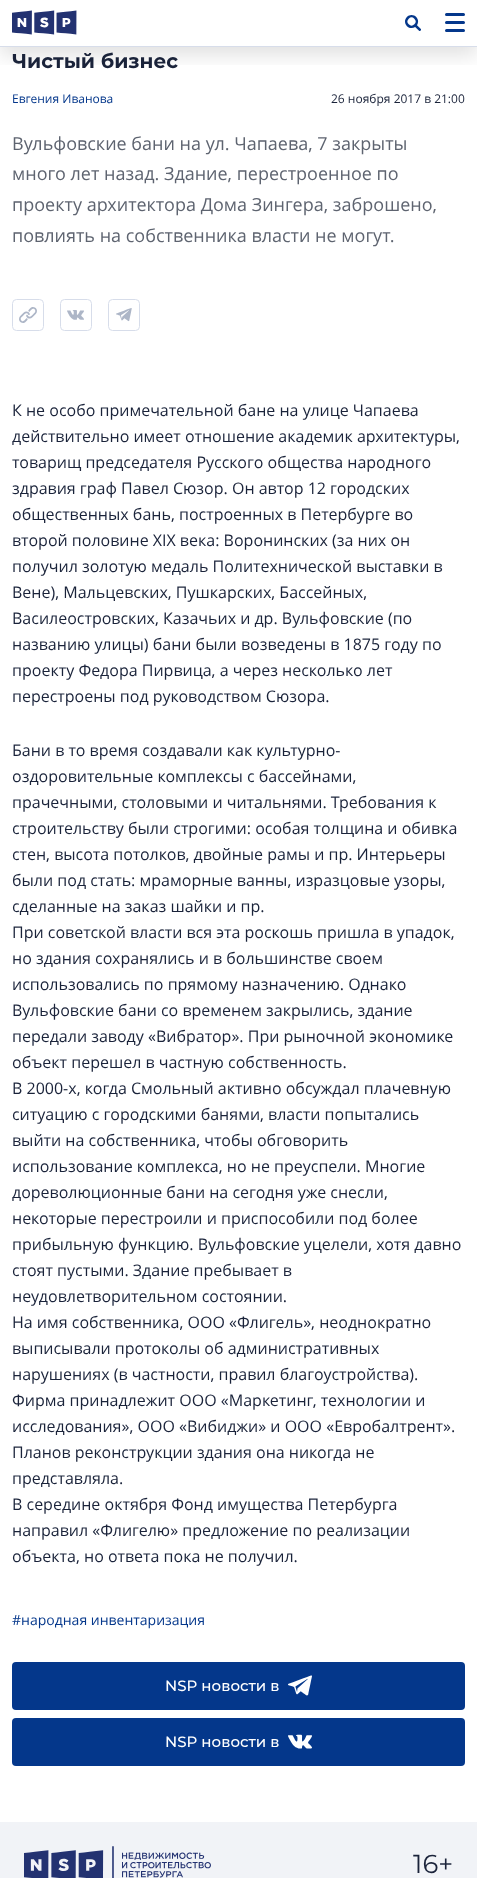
<svg xmlns="http://www.w3.org/2000/svg" width="477" height="1878" viewBox="0 0 477 1878">
  <defs>
    <clipPath id="clip1"><path d="M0 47h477v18H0z"/></clipPath>
  </defs>
  <rect width="100%" height="100%" fill="#fff"/>
  <g clip-path="url(#clip1)">
    <path d="M0 8h477v47H0z" fill="#0000001f" filter="blur(10px)"/>
  </g>
  <path d="M0 46h477v1H0z" fill="#d7ddea"/>
  <image x="12" y="10" width="65" height="25" href="img/1.png"/>
  <image x="405" y="15" width="16" height="16" href="img/2.png"/>
  <image x="445" y="13" width="20" height="19" href="img/3.png"/>
  <image x="12" y="299" width="32" height="32" href="img/4.png"/>
  <image x="60" y="299" width="32" height="32" href="img/5.png"/>
  <image x="108" y="299" width="32" height="32" href="img/6.png"/>
  <rect x="12" y="1662" width="453" height="48" rx="4" fill="#04378b"/>
  <image x="288" y="1675" width="24" height="21" href="img/7.png"/>
  <rect x="12" y="1718" width="453" height="48" rx="4" fill="#04378b"/>
  <image x="288" y="1734" width="24" height="15" href="img/8.png"/>
  <path d="M0 1822h477v56H0z" fill="#f1f3f7"/>
  <image x="24" y="1846" width="187" height="32" href="img/9.png"/>
  <text x="12" y="68" font-family="Montserrat" font-size="20" font-weight="bold" fill="#1a233a">Чистый бизнес</text>
  <text x="12" y="103" font-family="Open Sans" font-size="12" fill="#04378b">Евгения Иванова</text>
  <text x="331" y="103" font-family="Open Sans" font-size="12" fill="#1a233a">26 ноября 2017 в 21:00</text>
  <g font-family="Open Sans" font-size="18" fill="#5e6470">
    <text x="12" y="150">Вульфовские бани на ул. Чапаева, 7 закрыты</text>
    <text x="12" y="180">много лет назад. Здание, перестроенное по</text>
    <text x="12" y="211">проекту архитектора Дома Зингера, заброшено,</text>
    <text x="12" y="242">повлиять на собственника власти не могут.</text>
  </g>
  <g font-family="Open Sans" font-size="16" fill="#1a233a">
    <text x="12" y="416">К не особо примечательной бане на улице Чапаева</text>
    <text x="12" y="442">действительно имеет отношение академик архитектуры,</text>
    <text x="12" y="468">товарищ председателя Русского общества народного</text>
    <text x="12" y="494">здравия граф Павел Сюзор. Он автор 12 городских</text>
    <text x="12" y="520">общественных бань, построенных в Петербурге во</text>
    <text x="12" y="546">второй половине XIX века: Воронинских (за них он</text>
    <text x="12" y="572">получил золотую медаль Политехнической выставки в</text>
    <text x="12" y="598">Вене), Мальцевских, Пушкарских, Бассейных,</text>
    <text x="12" y="624">Василеостровских, Казачьих и др. Вульфовские (по</text>
    <text x="12" y="650">названию улицы) бани были возведены в 1875 году по</text>
    <text x="12" y="676">проекту Федора Пирвица, а через несколько лет</text>
    <text x="12" y="702">перестроены под руководством Сюзора.</text>
    <text x="12" y="756">Бани в то время создавали как культурно-</text>
    <text x="12" y="782">оздоровительные комплексы с бассейнами,</text>
    <text x="12" y="808">прачечными, столовыми и читальнями. Требования к</text>
    <text x="12" y="834">строительству были строгими: особая толщина и обивка</text>
    <text x="12" y="860">стен, высота потолков, двойные рамы и пр. Интерьеры</text>
    <text x="12" y="886">были под стать: мраморные ванны, изразцовые узоры,</text>
    <text x="12" y="912">сделанные на заказ шайки и пр.</text>
    <text x="12" y="938">При советской власти вся эта роскошь пришла в упадок,</text>
    <text x="12" y="964">но здания сохранялись и в большинстве своем</text>
    <text x="12" y="990">использовались по прямому назначению. Однако</text>
    <text x="12" y="1016">Вульфовские бани со временем закрылись, здание</text>
    <text x="12" y="1042">передали заводу «Вибратор». При рыночной экономике</text>
    <text x="12" y="1068">объект перешел в частную собственность.</text>
    <text x="12" y="1094">В 2000-х, когда Смольный активно обсуждал плачевную</text>
    <text x="12" y="1120">ситуацию с городскими банями, власти попытались</text>
    <text x="12" y="1146">выйти на собственника, чтобы обговорить</text>
    <text x="12" y="1172">использование комплекса, но не преуспели. Многие</text>
    <text x="12" y="1198">дореволюционные бани на сегодня уже снесли,</text>
    <text x="12" y="1224">некоторые перестроили и приспособили под более</text>
    <text x="12" y="1250">прибыльную функцию. Вульфовские уцелели, хотя давно</text>
    <text x="12" y="1276">стоят пустыми. Здание пребывает в</text>
    <text x="12" y="1302">неудовлетворительном состоянии.</text>
    <text x="12" y="1328">На имя собственника, ООО «Флигель», неоднократно</text>
    <text x="12" y="1354">выписывали протоколы об административных</text>
    <text x="12" y="1380">нарушениях (в частности, правил благоустройства).</text>
    <text x="12" y="1406">Фирма принадлежит ООО «Маркетинг, технологии и</text>
    <text x="12" y="1432">исследования», ООО «Вибиджи» и ООО «Евробалтрент».</text>
    <text x="12" y="1458">Планов реконструкции здания она никогда не</text>
    <text x="12" y="1484">представляла.</text>
    <text x="12" y="1510">В середине октября Фонд имущества Петербурга</text>
    <text x="12" y="1536">направил «Флигелю» предложение по реализации</text>
    <text x="12" y="1562">объекта, но ответа пока не получил.</text>
  </g>
  <text x="12" y="1625" font-family="Open Sans" font-size="14" fill="#04378b">#народная инвентаризация</text>
  <g font-family="Montserrat" font-size="15" font-weight="500" fill="#fff">
    <text x="165" y="1691">NSP новости в</text>
    <text x="165" y="1747">NSP новости в</text>
  </g>
  <text x="413" y="1873" font-family="Montserrat" font-size="26" fill="#1a233a">16+</text>
</svg>
